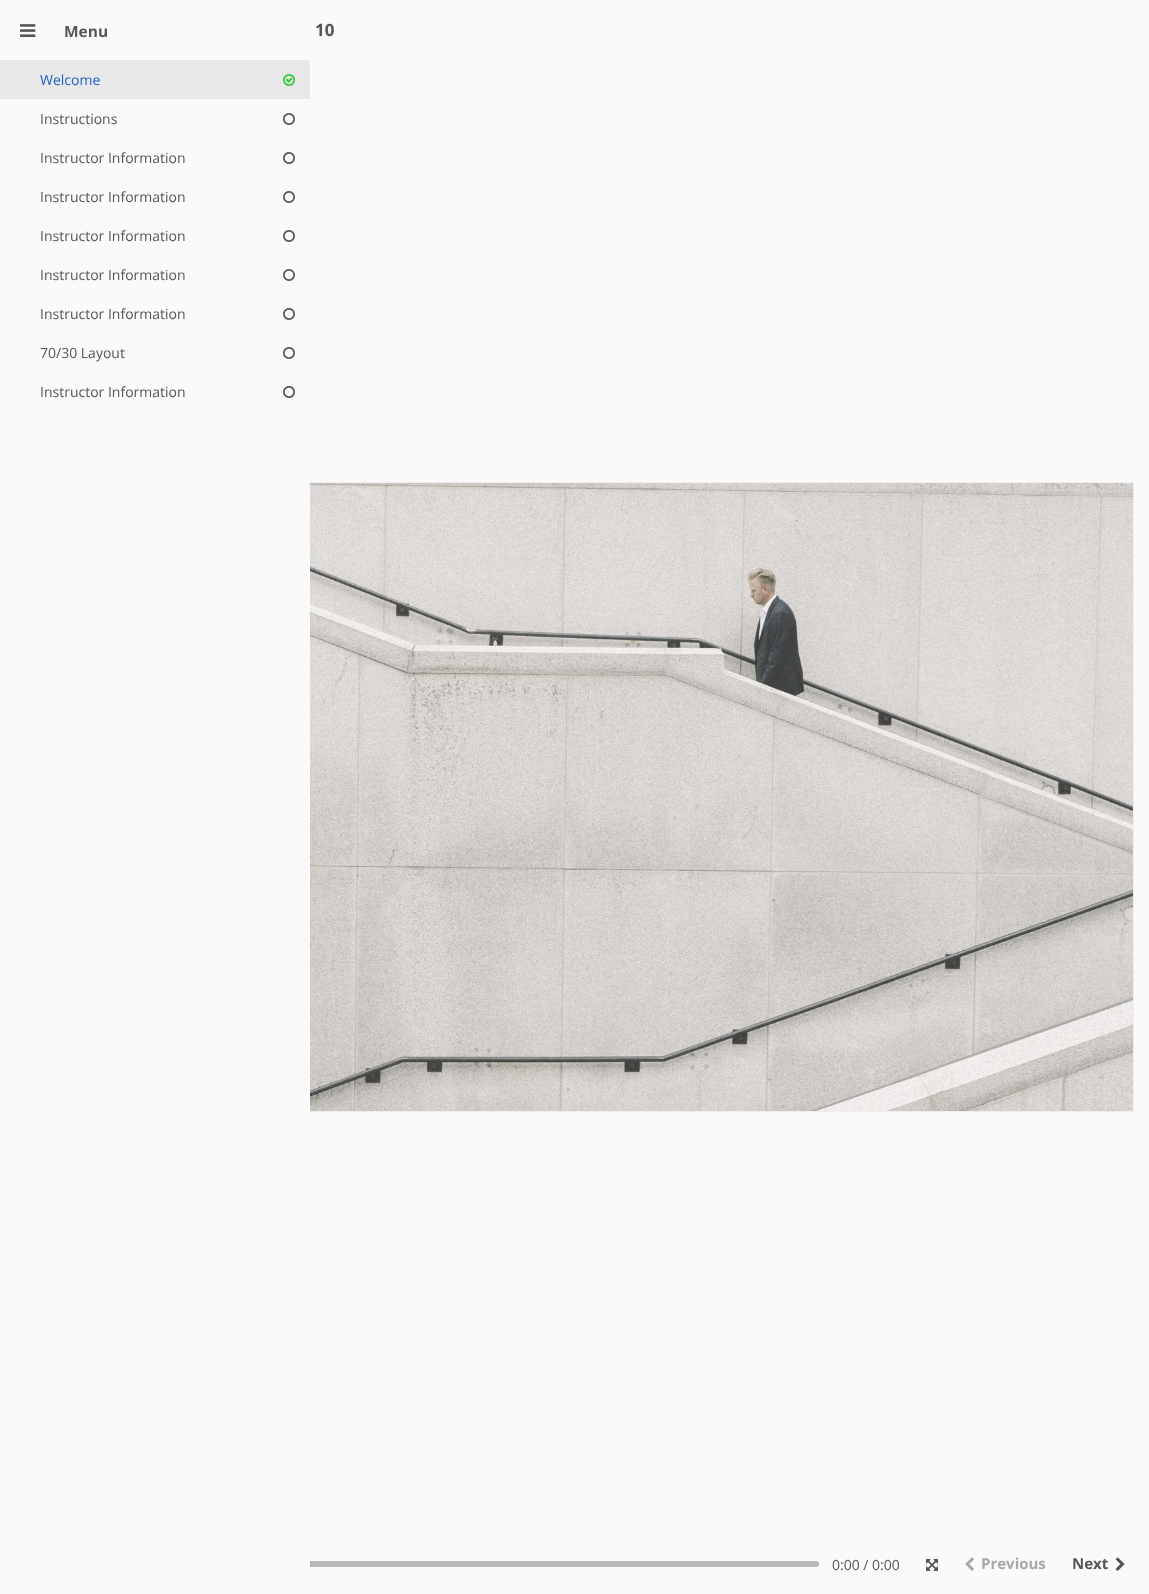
<svg xmlns="http://www.w3.org/2000/svg" width="1149" height="1594" viewBox="0 0 1149 1594">
  <rect width="100%" height="100%" fill="#fafafa"/>
  <path d="M15.5 482.5h1118v629H15.5z" fill="none" stroke="#eee"/>
  <rect x="98" y="1561" width="721" height="6" rx="3" fill="#b8b8b8"/>
  <path d="M15 482h295v1085H15z" fill="#fafafa"/>
  <image x="20" y="24" width="16" height="13" href="img/1.png"/>
  <path d="M0 60h310v39H0z" fill="#e8e8e8"/>
  <image x="283" y="74" width="12" height="12" href="img/2.png"/>
  <image x="283" y="113" width="12" height="12" href="img/3.png"/>
  <image x="283" y="152" width="12" height="12" href="img/3.png"/>
  <image x="283" y="191" width="12" height="12" href="img/3.png"/>
  <image x="283" y="230" width="12" height="12" href="img/3.png"/>
  <image x="283" y="269" width="12" height="12" href="img/3.png"/>
  <image x="283" y="308" width="12" height="12" href="img/3.png"/>
  <image x="283" y="347" width="12" height="12" href="img/3.png"/>
  <image x="283" y="386" width="12" height="12" href="img/3.png"/>
  <image x="310" y="483" width="823" height="628" href="img/4.png"/>
  <image x="926" y="1559" width="12" height="12" href="img/5.png"/>
  <image x="965" y="1557" width="9" height="14" href="img/6.png"/>
  <image x="1115" y="1557" width="10" height="14" href="img/7.png"/>
  <text x="64" y="37" font-family="Open Sans" font-size="15.5" font-weight="bold" fill="#565656">Menu</text>
  <text x="40" y="85" font-family="Open Sans" font-size="14" fill="#2061c7">Welcome</text>
  <g font-family="Open Sans" font-size="14" fill="#565656">
    <text x="40" y="124">Instructions</text>
    <text x="40" y="163">Instructor Information</text>
    <text x="40" y="202">Instructor Information</text>
    <text x="40" y="241">Instructor Information</text>
    <text x="40" y="280">Instructor Information</text>
    <text x="40" y="319">Instructor Information</text>
    <text x="40" y="358">70/30 Layout</text>
    <text x="40" y="397">Instructor Information</text>
  </g>
  <text x="315" y="36" font-family="Open Sans" font-size="17" font-weight="bold" fill="#565656">10</text>
  <text x="832" y="1570" font-family="Open Sans" font-size="14" fill="#565656">0:00 / 0:00</text>
  <text x="981" y="1569" font-family="Open Sans" font-size="15" font-weight="bold" fill="#a8a8a8">Previous</text>
  <text x="1072" y="1569" font-family="Open Sans" font-size="15" font-weight="bold" fill="#565656">Next</text>
</svg>
